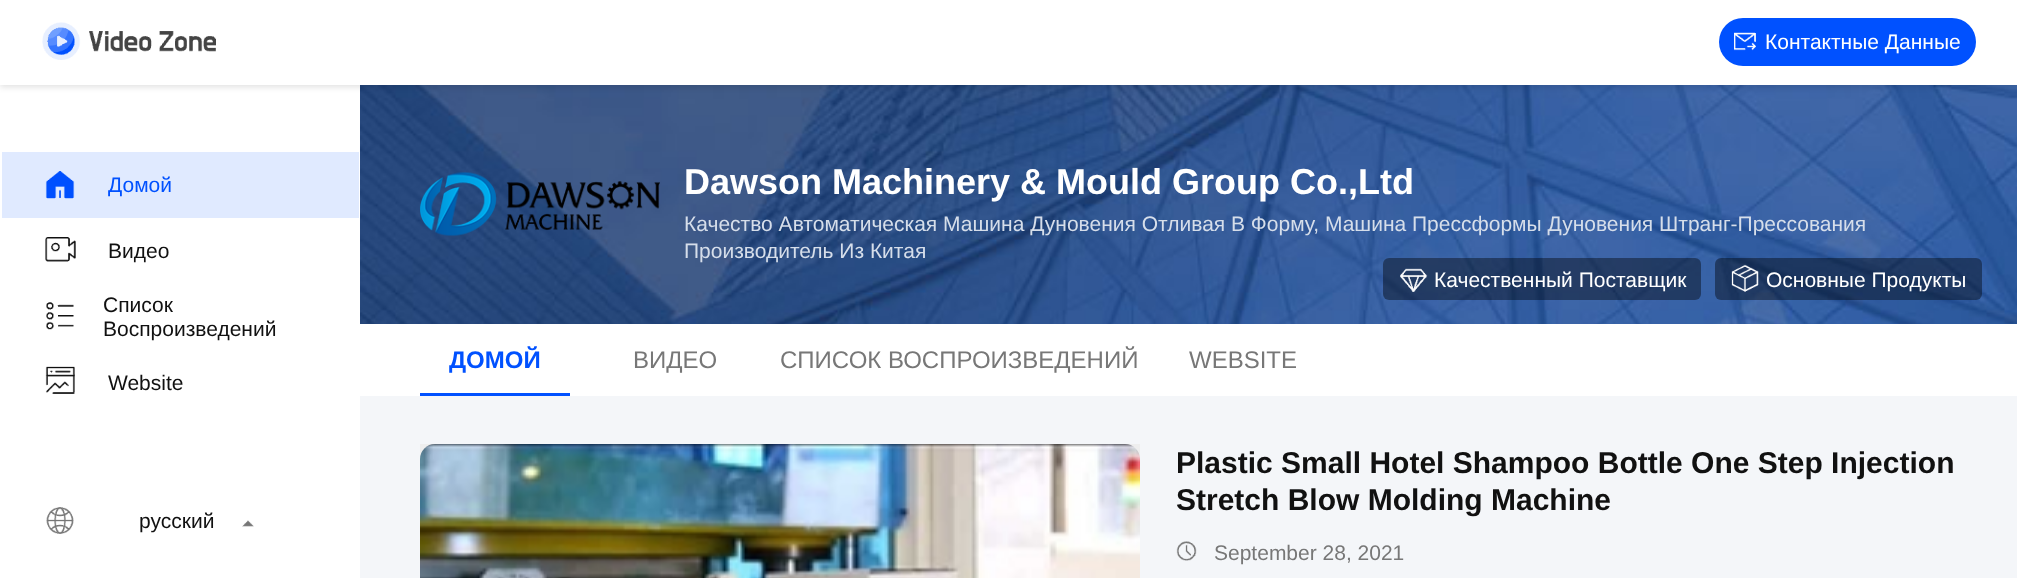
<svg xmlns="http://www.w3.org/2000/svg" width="2017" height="578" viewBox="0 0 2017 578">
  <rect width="100%" height="100%" fill="#fff"/>
  <image x="360" y="85" width="1657" height="239" href="img/9.png"/>
  <path d="M0 3h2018v84H0z" fill="#0000001f" filter="blur(3px)"/>
  <path d="M0 0h2017v85H0z" fill="#fff"/>
  <image x="42" y="22" width="174" height="38" href="img/1.png"/>
  <rect x="1719" y="18" width="257" height="48" rx="24" fill="#0051ff"/>
  <image x="1734" y="32" width="22" height="19" href="img/2.png"/>
  <path d="M2 152h357v66H2z" fill="#e0eaff"/>
  <image x="45" y="171" width="30" height="28" href="img/3.png"/>
  <image x="45" y="237" width="31" height="25" href="img/4.png"/>
  <image x="46" y="302" width="28" height="28" href="img/5.png"/>
  <image x="45" y="366" width="30" height="28" href="img/6.png"/>
  <image x="46" y="507" width="28" height="27" href="img/7.png"/>
  <image x="242" y="520" width="12" height="7" href="img/8.png"/>
  <path d="M360 396h1657v182H360z" fill="#f4f6f9"/>
  <image x="420" y="172" width="240" height="64" href="img/10.png"/>
  <rect x="1383" y="258" width="318" height="42" rx="6" fill="#00000066"/>
  <image x="1400" y="268" width="28" height="24" href="img/11.png"/>
  <rect x="1715" y="258" width="267" height="42" rx="6" fill="#00000066"/>
  <image x="1731" y="264" width="28" height="28" href="img/12.png"/>
  <path d="M420 393h150v3H420z" fill="#0051ff"/>
  <path d="M420 444h720v15H420z" fill="#eee"/>
  <image x="420" y="444" width="720" height="134" href="img/13.png"/>
  <image x="1176" y="541" width="21" height="20" href="img/14.png"/>
  <text x="1765" y="49" font-family="Liberation Sans" font-size="21" fill="#fff">Контактные Данные</text>
  <text x="108" y="192" font-family="Liberation Sans" font-size="21" fill="#0051ff">Домой</text>
  <g font-family="Liberation Sans" font-size="21" fill="#111">
    <text x="108" y="258">Видео</text>
    <text x="103" y="312">Список</text>
    <text x="103" y="336">Воспроизведений</text>
    <text x="108" y="390">Website</text>
    <text x="139" y="528">русский</text>
  </g>
  <text x="684" y="194" font-family="Liberation Sans" font-size="36" font-weight="bold" fill="#fff">Dawson Machinery &amp; Mould Group Co.,Ltd</text>
  <g font-family="Liberation Sans" font-size="21" fill="#d6deea">
    <text x="684" y="231">Качество Автоматическая Машина Дуновения Отливая В Форму, Машина Прессформы Дуновения Штранг-Прессования</text>
    <text x="684" y="258">Производитель Из Китая</text>
  </g>
  <g font-family="Liberation Sans" font-size="21" fill="#fff">
    <text x="1434" y="287">Качественный Поставщик</text>
    <text x="1766" y="287">Основные Продукты</text>
  </g>
  <text x="449" y="368" font-family="Liberation Sans" font-size="24" font-weight="bold" fill="#0051ff">ДОМОЙ</text>
  <g font-family="Liberation Sans" font-size="24" fill="#777">
    <text x="633" y="368">ВИДЕО</text>
    <text x="780" y="368">СПИСОК ВОСПРОИЗВЕДЕНИЙ</text>
    <text x="1189" y="368">WEBSITE</text>
  </g>
  <g font-family="Liberation Sans" font-size="30" font-weight="bold" fill="#111">
    <text x="1176" y="473">Plastic Small Hotel Shampoo Bottle One Step Injection</text>
    <text x="1176" y="510">Stretch Blow Molding Machine</text>
  </g>
  <text x="1214" y="560" font-family="Liberation Sans" font-size="21" fill="#777">September 28, 2021</text>
</svg>
